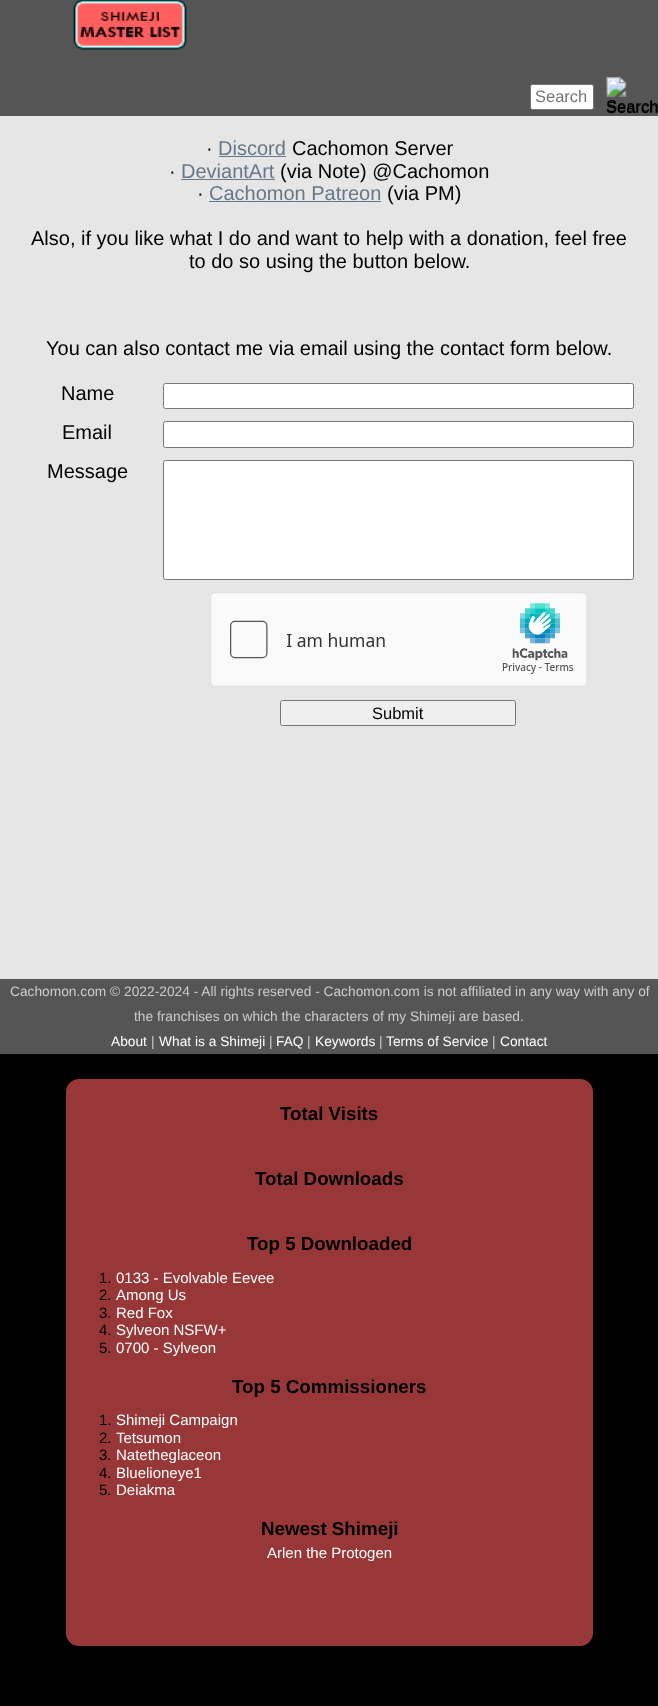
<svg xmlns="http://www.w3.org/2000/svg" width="658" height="1706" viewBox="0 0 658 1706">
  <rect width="100%" height="100%" fill="#e6e6e6"/>
  <path d="M0 0h658v116H0z" fill="#555"/>
  <image x="73" y="0" width="114" height="50" href="img/1.png"/>
  <rect x="530.5" y="84.5" width="63" height="25" rx="2" fill="#fff" stroke="#767676"/>
  <image x="606" y="77" width="52" height="35" href="img/2.png"/>
  <path d="M219 156h67v1H219z" fill="#678"/>
  <path d="M181 179h94v1H181z" fill="#678"/>
  <path d="M209 201h172v1H209z" fill="#678"/>
  <rect x="163.5" y="383.5" width="470" height="25" rx="2" fill="#fff" stroke="#767676"/>
  <rect x="163.5" y="421.5" width="470" height="26" rx="2" fill="#fff" stroke="#767676"/>
  <rect x="163.5" y="460.5" width="470" height="119" rx="2" fill="#fff" stroke="#767676"/>
  <image x="210" y="592" width="377" height="95" href="img/3.png"/>
  <rect x="280.5" y="700.5" width="235" height="25" rx="2" fill="#efefef" stroke="#767676"/>
  <path d="M0 979h658v75H0z" fill="#555"/>
  <path d="M0 1054h658v652H0z" fill="#000"/>
  <rect x="66" y="1079" width="527" height="567" rx="13" fill="#983737"/>
  <text x="535" y="102" font-family="Liberation Sans" font-size="16.5" fill="#757575">Search</text>
  <text x="606" y="113" font-family="Liberation Sans" font-size="16.5" fill="#000">Search</text>
  <text x="206" y="155" font-family="Liberation Sans" font-size="20" fill="#000">·</text>
  <text x="218" y="155" font-family="Liberation Sans" font-size="20" fill="#678">Discord</text>
  <g font-family="Liberation Sans" font-size="20" fill="#000">
    <text x="292" y="155">Cachomon Server</text>
    <text x="169" y="178">·</text>
  </g>
  <text x="181" y="178" font-family="Liberation Sans" font-size="20" fill="#678">DeviantArt</text>
  <g font-family="Liberation Sans" font-size="20" fill="#000">
    <text x="280" y="178">(via Note) @Cachomon</text>
    <text x="197" y="200">·</text>
  </g>
  <text x="209" y="200" font-family="Liberation Sans" font-size="20" fill="#678">Cachomon Patreon</text>
  <g font-family="Liberation Sans" font-size="20" fill="#000">
    <text x="387" y="200">(via PM)</text>
    <text x="31" y="245">Also, if you like what I do and want to help with a donation, feel free</text>
    <text x="189" y="268">to do so using the button below.</text>
    <text x="46" y="355">You can also contact me via email using the contact form below.</text>
    <text x="61" y="400">Name</text>
    <text x="62" y="439">Email</text>
    <text x="47" y="478">Message</text>
  </g>
  <text x="372" y="719" font-family="Liberation Sans" font-size="16.5" fill="#000">Submit</text>
  <g font-family="Liberation Sans" font-size="13.75" fill="#ccc">
    <text x="10" y="996">Cachomon.com © 2022-2024 - All rights reserved - Cachomon.com is not affiliated in any way with any of</text>
    <text x="134" y="1021">the franchises on which the characters of my Shimeji are based.</text>
  </g>
  <text x="111" y="1046" font-family="Liberation Sans" font-size="13.75" fill="#fff">About</text>
  <text x="151" y="1046" font-family="Liberation Sans" font-size="13.75" fill="#ccc">|</text>
  <text x="159" y="1046" font-family="Liberation Sans" font-size="13.75" fill="#fff">What is a Shimeji</text>
  <text x="269" y="1046" font-family="Liberation Sans" font-size="13.75" fill="#ccc">|</text>
  <text x="276" y="1046" font-family="Liberation Sans" font-size="13.75" fill="#fff">FAQ</text>
  <text x="307" y="1046" font-family="Liberation Sans" font-size="13.75" fill="#ccc">|</text>
  <text x="315" y="1046" font-family="Liberation Sans" font-size="13.75" fill="#fff">Keywords</text>
  <text x="379" y="1046" font-family="Liberation Sans" font-size="13.75" fill="#ccc">|</text>
  <text x="386" y="1046" font-family="Liberation Sans" font-size="13.75" fill="#fff">Terms of Service</text>
  <text x="492" y="1046" font-family="Liberation Sans" font-size="13.75" fill="#ccc">|</text>
  <text x="500" y="1046" font-family="Liberation Sans" font-size="13.75" fill="#fff">Contact</text>
  <g font-family="Liberation Sans" font-size="18.75" font-weight="bold" fill="#000">
    <text x="280" y="1120">Total Visits</text>
    <text x="255" y="1185">Total Downloads</text>
    <text x="247" y="1250">Top 5 Downloaded</text>
  </g>
  <text x="99" y="1283" font-family="Liberation Sans" font-size="15" fill="#000">1.</text>
  <text x="116" y="1283" font-family="Liberation Sans" font-size="15" fill="#fff">0133 - Evolvable Eevee</text>
  <text x="99" y="1300" font-family="Liberation Sans" font-size="15" fill="#000">2.</text>
  <text x="116" y="1300" font-family="Liberation Sans" font-size="15" fill="#fff">Among Us</text>
  <text x="99" y="1318" font-family="Liberation Sans" font-size="15" fill="#000">3.</text>
  <text x="116" y="1318" font-family="Liberation Sans" font-size="15" fill="#fff">Red Fox</text>
  <text x="99" y="1335" font-family="Liberation Sans" font-size="15" fill="#000">4.</text>
  <text x="116" y="1335" font-family="Liberation Sans" font-size="15" fill="#fff">Sylveon NSFW+</text>
  <text x="99" y="1353" font-family="Liberation Sans" font-size="15" fill="#000">5.</text>
  <text x="116" y="1353" font-family="Liberation Sans" font-size="15" fill="#fff">0700 - Sylveon</text>
  <text x="232" y="1393" font-family="Liberation Sans" font-size="18.75" font-weight="bold" fill="#000">Top 5 Commissioners</text>
  <text x="99" y="1425" font-family="Liberation Sans" font-size="15" fill="#000">1.</text>
  <text x="116" y="1425" font-family="Liberation Sans" font-size="15" fill="#fff">Shimeji Campaign</text>
  <text x="99" y="1443" font-family="Liberation Sans" font-size="15" fill="#000">2.</text>
  <text x="116" y="1443" font-family="Liberation Sans" font-size="15" fill="#fff">Tetsumon</text>
  <text x="99" y="1460" font-family="Liberation Sans" font-size="15" fill="#000">3.</text>
  <text x="116" y="1460" font-family="Liberation Sans" font-size="15" fill="#fff">Natetheglaceon</text>
  <text x="99" y="1478" font-family="Liberation Sans" font-size="15" fill="#000">4.</text>
  <text x="116" y="1478" font-family="Liberation Sans" font-size="15" fill="#fff">Bluelioneye1</text>
  <text x="99" y="1495" font-family="Liberation Sans" font-size="15" fill="#000">5.</text>
  <text x="116" y="1495" font-family="Liberation Sans" font-size="15" fill="#fff">Deiakma</text>
  <text x="261" y="1535" font-family="Liberation Sans" font-size="18.75" font-weight="bold" fill="#000">Newest Shimeji</text>
  <text x="267" y="1558" font-family="Liberation Sans" font-size="15" fill="#fff">Arlen the Protogen</text>
</svg>
